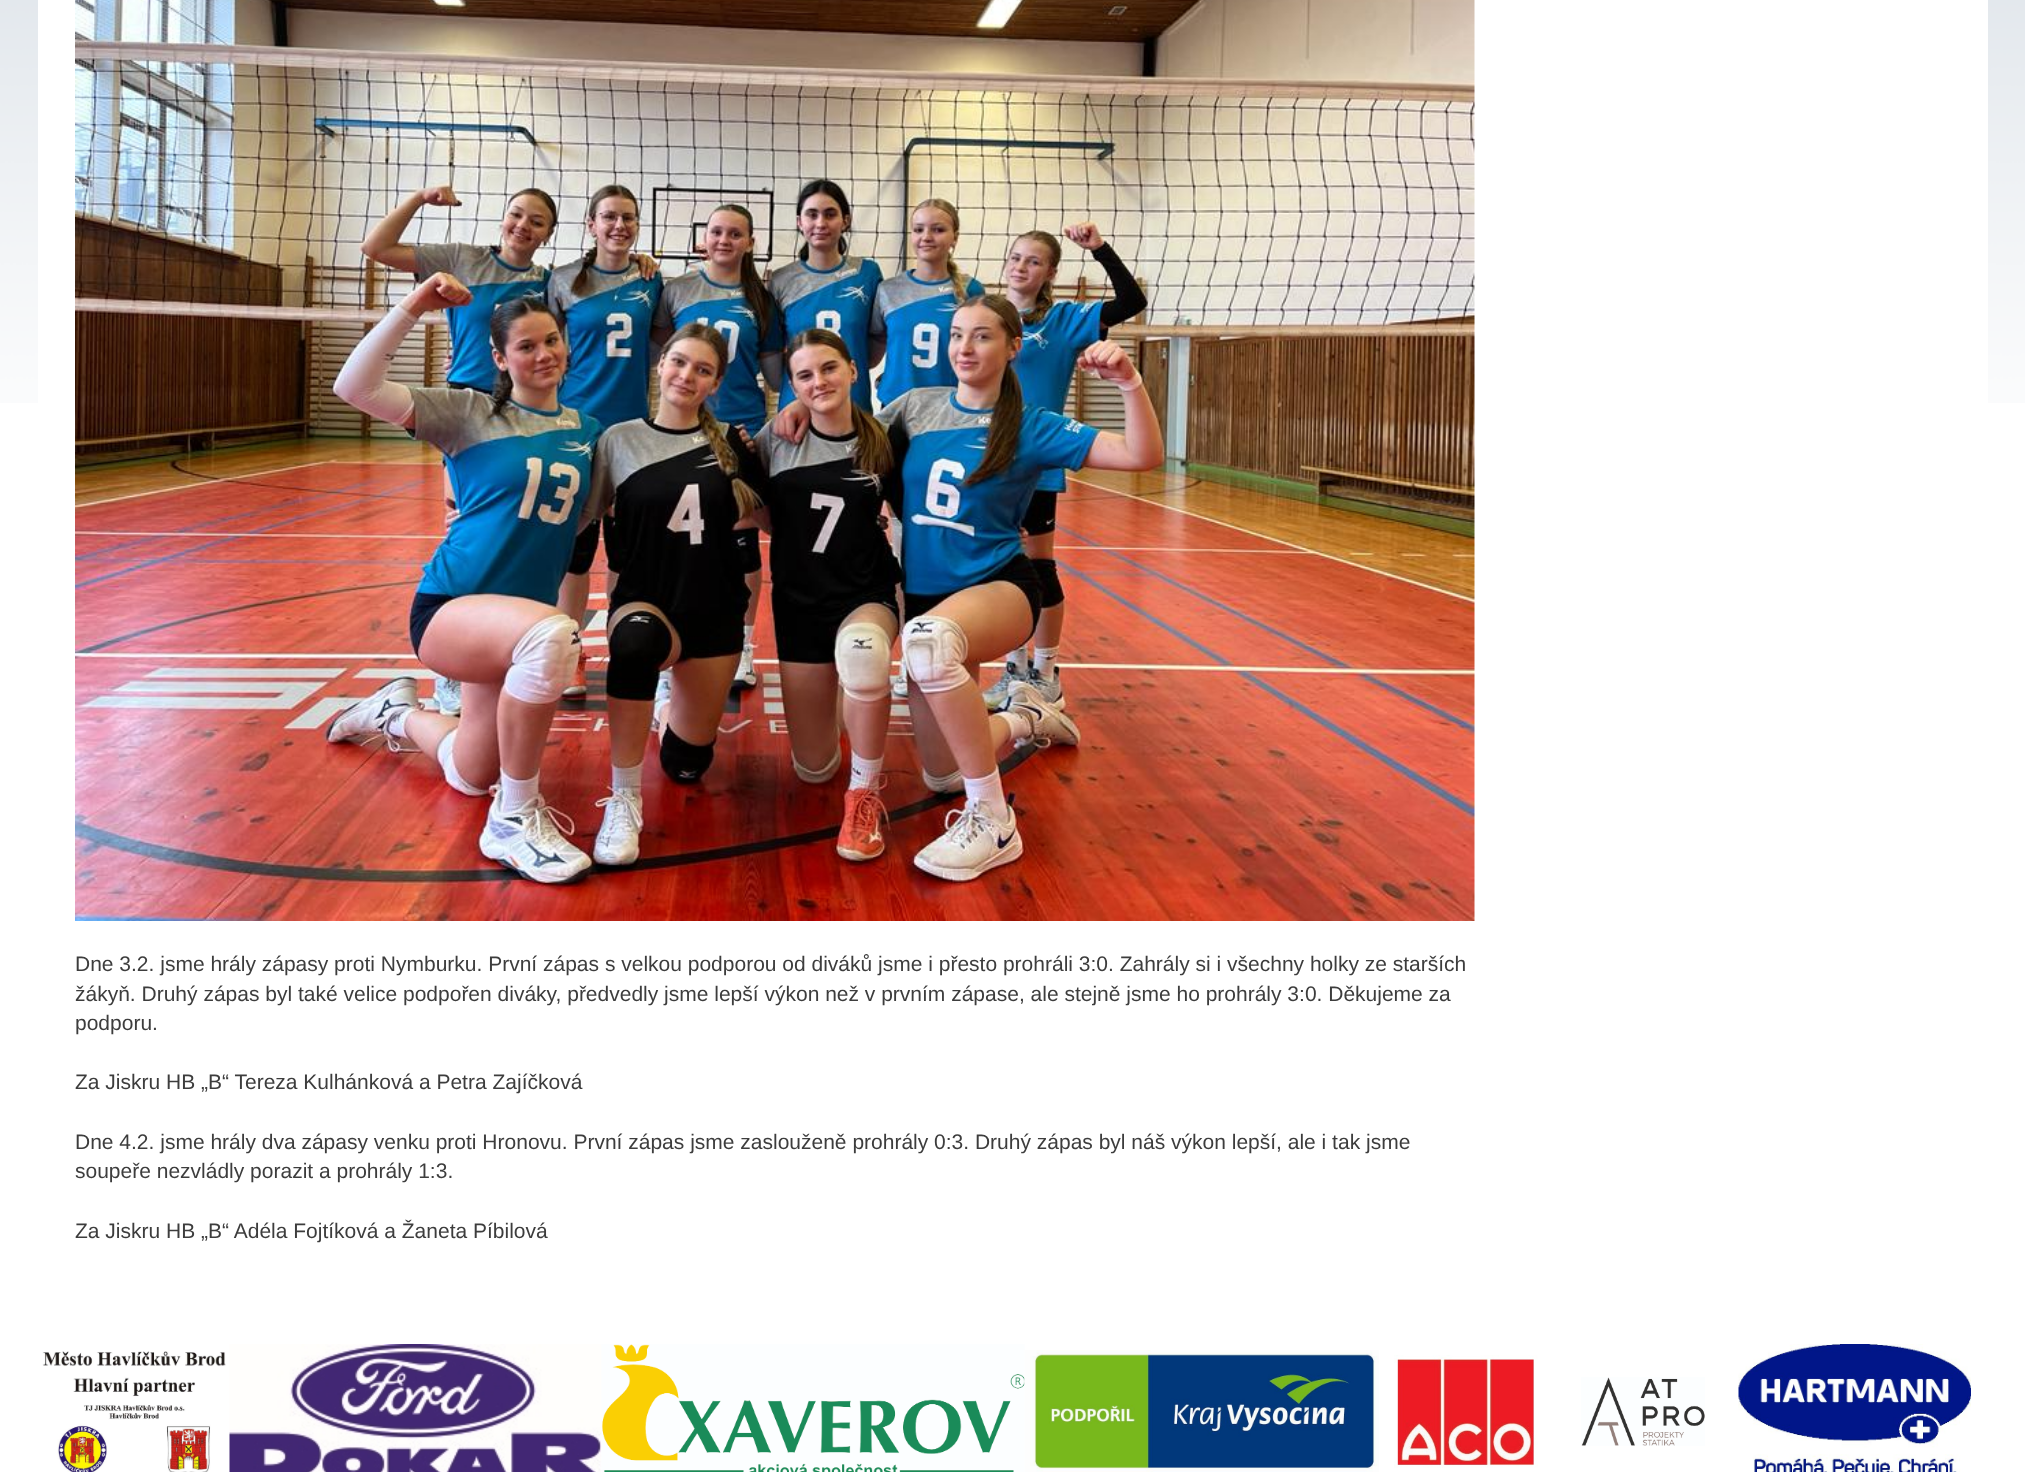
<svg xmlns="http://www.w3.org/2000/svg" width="2025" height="1472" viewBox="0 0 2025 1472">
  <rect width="100%" height="100%" fill="#fff"/>
  <image x="0" y="0" width="2025" height="403" href="img/1.png"/>
  <path d="M38 0h1950v403H38z" fill="#fff"/>
  <image x="75" y="0" width="1400" height="921" href="img/2.png"/>
  <image x="42" y="1351" width="184" height="121" href="img/3.png"/>
  <image x="229" y="1344" width="373" height="128" href="img/4.png"/>
  <image x="601" y="1344" width="424" height="128" href="img/5.png"/>
  <image x="1024" y="1350" width="355" height="122" href="img/6.png"/>
  <image x="1394" y="1355" width="144" height="113" href="img/7.png"/>
  <image x="1581" y="1377" width="124" height="69" href="img/8.png"/>
  <image x="1738" y="1344" width="233" height="128" href="img/9.png"/>
  <g font-family="Liberation Sans" font-size="21" fill="#3d3d3d">
    <text x="75" y="971">Dne 3.2. jsme hrály zápasy proti Nymburku. První zápas s velkou podporou od diváků jsme i přesto prohráli 3:0. Zahrály si i všechny holky ze starších</text>
    <text x="75" y="1001">žákyň. Druhý zápas byl také velice podpořen diváky, předvedly jsme lepší výkon než v prvním zápase, ale stejně jsme ho prohrály 3:0. Děkujeme za</text>
    <text x="75" y="1030">podporu.</text>
    <text x="75" y="1089">Za Jiskru HB „B“ Tereza Kulhánková a Petra Zajíčková</text>
    <text x="75" y="1149">Dne 4.2. jsme hrály dva zápasy venku proti Hronovu. První zápas jsme zaslouženě prohrály 0:3. Druhý zápas byl náš výkon lepší, ale i tak jsme</text>
    <text x="75" y="1178">soupeře nezvládly porazit a prohrály 1:3.</text>
    <text x="75" y="1238">Za Jiskru HB „B“ Adéla Fojtíková a Žaneta Píbilová</text>
  </g>
</svg>
